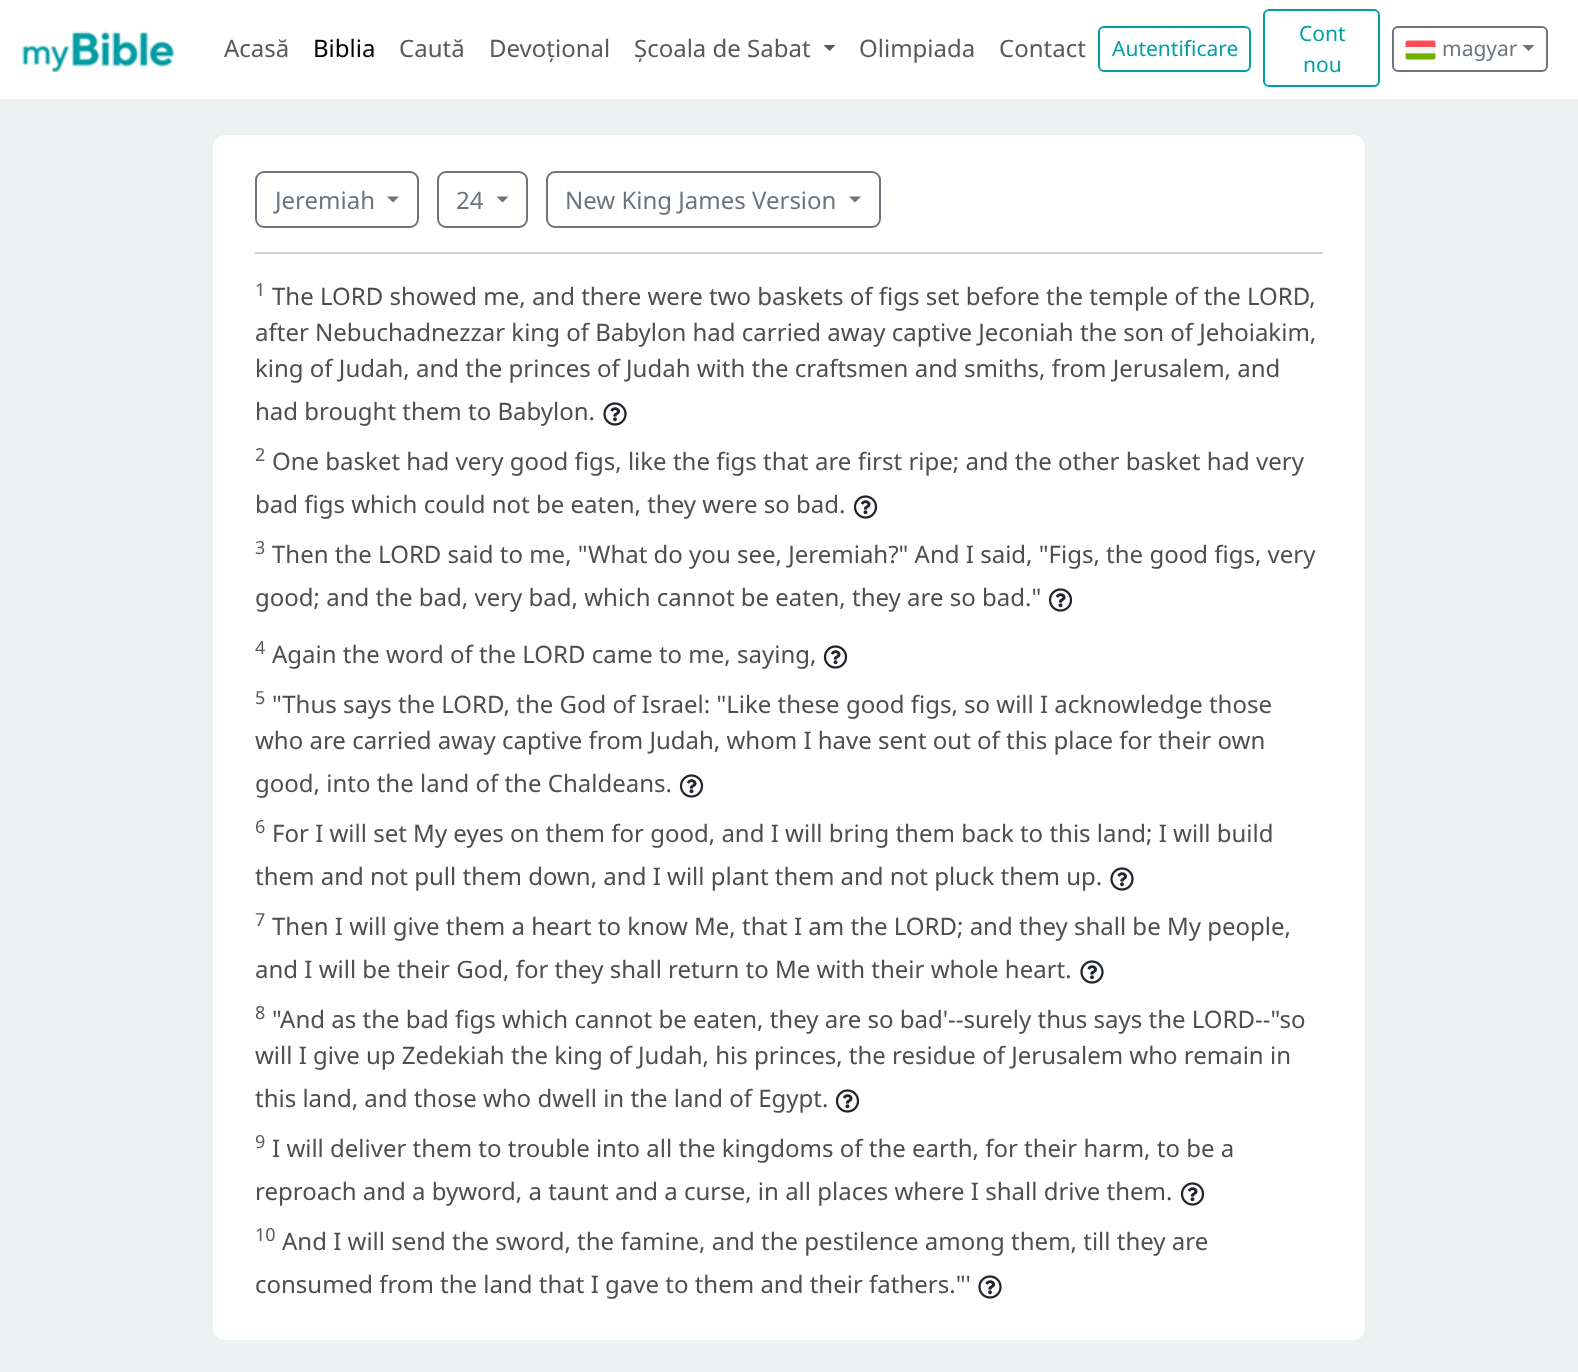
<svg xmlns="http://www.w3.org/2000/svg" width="1578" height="1372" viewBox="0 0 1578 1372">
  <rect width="100%" height="100%" fill="#ecf1f1"/>
  <path d="M0 0h1578v99H0z" fill="#fff"/>
  <image x="22" y="31" width="153" height="41" href="img/1.png"/>
  <path d="M823.5 45H835.5L829.5 51Z" fill="#595959"/>
  <rect x="1099" y="27" width="151" height="44" rx="5" fill="none" stroke="#00a0a7" stroke-width="2"/>
  <rect x="1264" y="10" width="115" height="76" rx="5" fill="none" stroke="#00a0a7" stroke-width="2"/>
  <rect x="1393" y="27" width="154" height="44" rx="5" fill="none" stroke="#6c757d" stroke-width="2"/>
  <image x="1405" y="40" width="31" height="20" href="img/2.png"/>
  <path d="M1522.5 45H1534.5L1528.5 51Z" fill="#6c757d"/>
  <rect x="213" y="135" width="1152" height="1205" rx="12" fill="#fff"/>
  <rect x="256" y="172" width="162" height="55" rx="8" fill="none" stroke="#6c757d" stroke-width="2"/>
  <path d="M387 196.5H399L393 202.5Z" fill="#6c757d"/>
  <rect x="438" y="172" width="89" height="55" rx="8" fill="none" stroke="#6c757d" stroke-width="2"/>
  <path d="M496.5 196.5H508.5L502.5 202.5Z" fill="#6c757d"/>
  <rect x="547" y="172" width="333" height="55" rx="8" fill="none" stroke="#6c757d" stroke-width="2"/>
  <path d="M849 196.5H861L855 202.5Z" fill="#6c757d"/>
  <path d="M255 252h1068v2H255z" fill="#d3d3d3"/>
  <image x="603" y="402" width="24" height="24" href="img/3.png"/>
  <image x="853" y="495" width="25" height="24" href="img/4.png"/>
  <image x="1048" y="588" width="25" height="24" href="img/4.png"/>
  <image x="823" y="645" width="25" height="24" href="img/4.png"/>
  <image x="679" y="774" width="25" height="24" href="img/4.png"/>
  <image x="1110" y="867" width="24" height="24" href="img/3.png"/>
  <image x="1080" y="960" width="24" height="24" href="img/3.png"/>
  <image x="835" y="1089" width="25" height="24" href="img/4.png"/>
  <image x="1180" y="1182" width="25" height="24" href="img/4.png"/>
  <image x="978" y="1275" width="24" height="24" href="img/3.png"/>
  <text x="224" y="57" font-family="Noto Sans" font-size="24" fill="#595959">Acasă</text>
  <text x="313" y="57" font-family="Noto Sans" font-size="24" fill="#000">Biblia</text>
  <g font-family="Noto Sans" font-size="24" fill="#595959">
    <text x="399" y="57">Caută</text>
    <text x="489" y="57">Devoțional</text>
    <text x="634" y="57">Școala de Sabat</text>
    <text x="859" y="57">Olimpiada</text>
    <text x="999" y="57">Contact</text>
  </g>
  <g font-family="Noto Sans" font-size="21" fill="#00a0a7">
    <text x="1112" y="56">Autentificare</text>
    <text x="1299" y="41">Cont</text>
    <text x="1303" y="72">nou</text>
  </g>
  <text x="1442" y="56" font-family="Noto Sans" font-size="21" fill="#6c757d">magyar</text>
  <g font-family="Noto Sans" font-size="24" fill="#6c757d">
    <text x="275" y="209">Jeremiah</text>
    <text x="456" y="209">24</text>
    <text x="565" y="209">New King James Version</text>
  </g>
  <text x="255" y="296" font-family="Noto Sans" font-size="18" fill="#595c5f">1</text>
  <g font-family="Noto Sans" font-size="24" fill="#4f4e4e">
    <text x="272" y="305">The LORD showed me, and there were two baskets of figs set before the temple of the LORD,</text>
    <text x="255" y="341">after Nebuchadnezzar king of Babylon had carried away captive Jeconiah the son of Jehoiakim,</text>
    <text x="255" y="377">king of Judah, and the princes of Judah with the craftsmen and smiths, from Jerusalem, and</text>
    <text x="255" y="420">had brought them to Babylon.</text>
  </g>
  <text x="255" y="461" font-family="Noto Sans" font-size="18" fill="#595c5f">2</text>
  <g font-family="Noto Sans" font-size="24" fill="#4f4e4e">
    <text x="272" y="470">One basket had very good figs, like the figs that are first ripe; and the other basket had very</text>
    <text x="255" y="513">bad figs which could not be eaten, they were so bad.</text>
  </g>
  <text x="255" y="554" font-family="Noto Sans" font-size="18" fill="#595c5f">3</text>
  <g font-family="Noto Sans" font-size="24" fill="#4f4e4e">
    <text x="272" y="563">Then the LORD said to me, "What do you see, Jeremiah?" And I said, "Figs, the good figs, very</text>
    <text x="255" y="606">good; and the bad, very bad, which cannot be eaten, they are so bad."</text>
  </g>
  <text x="255" y="654" font-family="Noto Sans" font-size="18" fill="#595c5f">4</text>
  <text x="272" y="663" font-family="Noto Sans" font-size="24" fill="#4f4e4e">Again the word of the LORD came to me, saying,</text>
  <text x="255" y="704" font-family="Noto Sans" font-size="18" fill="#595c5f">5</text>
  <g font-family="Noto Sans" font-size="24" fill="#4f4e4e">
    <text x="272" y="713">"Thus says the LORD, the God of Israel: "Like these good figs, so will I acknowledge those</text>
    <text x="255" y="749">who are carried away captive from Judah, whom I have sent out of this place for their own</text>
    <text x="255" y="792">good, into the land of the Chaldeans.</text>
  </g>
  <text x="255" y="833" font-family="Noto Sans" font-size="18" fill="#595c5f">6</text>
  <g font-family="Noto Sans" font-size="24" fill="#4f4e4e">
    <text x="272" y="842">For I will set My eyes on them for good, and I will bring them back to this land; I will build</text>
    <text x="255" y="885">them and not pull them down, and I will plant them and not pluck them up.</text>
  </g>
  <text x="255" y="926" font-family="Noto Sans" font-size="18" fill="#595c5f">7</text>
  <g font-family="Noto Sans" font-size="24" fill="#4f4e4e">
    <text x="272" y="935">Then I will give them a heart to know Me, that I am the LORD; and they shall be My people,</text>
    <text x="255" y="978">and I will be their God, for they shall return to Me with their whole heart.</text>
  </g>
  <text x="255" y="1019" font-family="Noto Sans" font-size="18" fill="#595c5f">8</text>
  <g font-family="Noto Sans" font-size="24" fill="#4f4e4e">
    <text x="272" y="1028">"And as the bad figs which cannot be eaten, they are so bad'--surely thus says the LORD--"so</text>
    <text x="255" y="1064">will I give up Zedekiah the king of Judah, his princes, the residue of Jerusalem who remain in</text>
    <text x="255" y="1107">this land, and those who dwell in the land of Egypt.</text>
  </g>
  <text x="255" y="1148" font-family="Noto Sans" font-size="18" fill="#595c5f">9</text>
  <g font-family="Noto Sans" font-size="24" fill="#4f4e4e">
    <text x="272" y="1157">I will deliver them to trouble into all the kingdoms of the earth, for their harm, to be a</text>
    <text x="255" y="1200">reproach and a byword, a taunt and a curse, in all places where I shall drive them.</text>
  </g>
  <text x="255" y="1241" font-family="Noto Sans" font-size="18" fill="#595c5f">10</text>
  <g font-family="Noto Sans" font-size="24" fill="#4f4e4e">
    <text x="282" y="1250">And I will send the sword, the famine, and the pestilence among them, till they are</text>
    <text x="255" y="1293">consumed from the land that I gave to them and their fathers."'</text>
  </g>
</svg>
